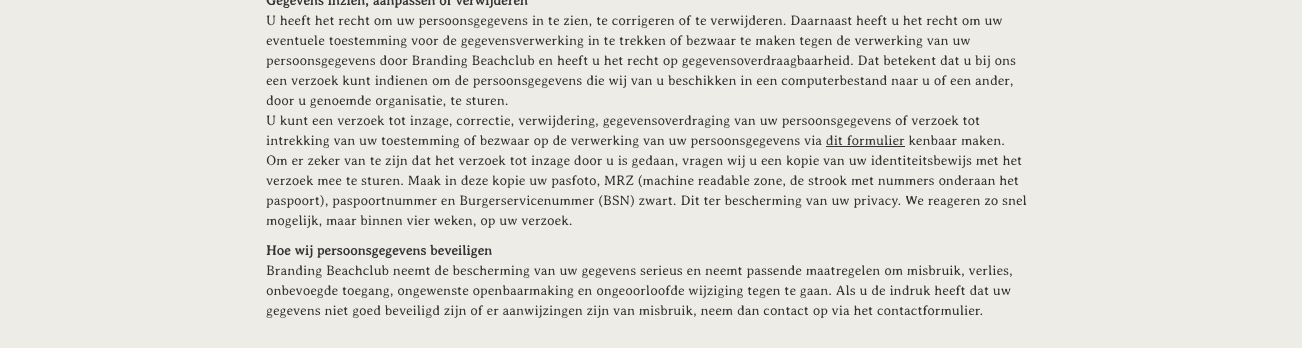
<svg xmlns="http://www.w3.org/2000/svg" width="1302" height="348" viewBox="0 0 1302 348">
  <rect width="100%" height="100%" fill="#eeece6"/>
  <path d="M826 146h79v1H826z" fill="#333"/>
  <text x="266" y="5" font-family="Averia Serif" font-size="14" font-weight="bold" fill="#333">Gegevens inzien, aanpassen of verwijderen</text>
  <g font-family="Averia Serif" font-size="14" font-weight="300" fill="#333">
    <text x="266" y="25">U heeft het recht om uw persoonsgegevens in te zien, te corrigeren of te verwijderen. Daarnaast heeft u het recht om uw</text>
    <text x="266" y="45">eventuele toestemming voor de gegevensverwerking in te trekken of bezwaar te maken tegen de verwerking van uw</text>
    <text x="266" y="65">persoonsgegevens door Branding Beachclub en heeft u het recht op gegevensoverdraagbaarheid. Dat betekent dat u bij ons</text>
    <text x="266" y="85">een verzoek kunt indienen om de persoonsgegevens die wij van u beschikken in een computerbestand naar u of een ander,</text>
    <text x="266" y="105">door u genoemde organisatie, te sturen.</text>
    <text x="266" y="125">U kunt een verzoek tot inzage, correctie, verwijdering, gegevensoverdraging van uw persoonsgegevens of verzoek tot</text>
    <text x="266" y="145">intrekking van uw toestemming of bezwaar op de verwerking van uw persoonsgegevens via dit formulier kenbaar maken.</text>
    <text x="266" y="165">Om er zeker van te zijn dat het verzoek tot inzage door u is gedaan, vragen wij u een kopie van uw identiteitsbewijs met het</text>
    <text x="266" y="185">verzoek mee te sturen. Maak in deze kopie uw pasfoto, MRZ (machine readable zone, de strook met nummers onderaan het</text>
    <text x="266" y="205">paspoort), paspoortnummer en Burgerservicenummer (BSN) zwart. Dit ter bescherming van uw privacy. We reageren zo snel</text>
    <text x="266" y="225">mogelijk, maar binnen vier weken, op uw verzoek.</text>
  </g>
  <text x="266" y="255" font-family="Averia Serif" font-size="14" font-weight="bold" fill="#333">Hoe wij persoonsgegevens beveiligen</text>
  <g font-family="Averia Serif" font-size="14" font-weight="300" fill="#333">
    <text x="266" y="275">Branding Beachclub neemt de bescherming van uw gegevens serieus en neemt passende maatregelen om misbruik, verlies,</text>
    <text x="266" y="295">onbevoegde toegang, ongewenste openbaarmaking en ongeoorloofde wijziging tegen te gaan. Als u de indruk heeft dat uw</text>
    <text x="266" y="315">gegevens niet goed beveiligd zijn of er aanwijzingen zijn van misbruik, neem dan contact op via het contactformulier.</text>
  </g>
</svg>
